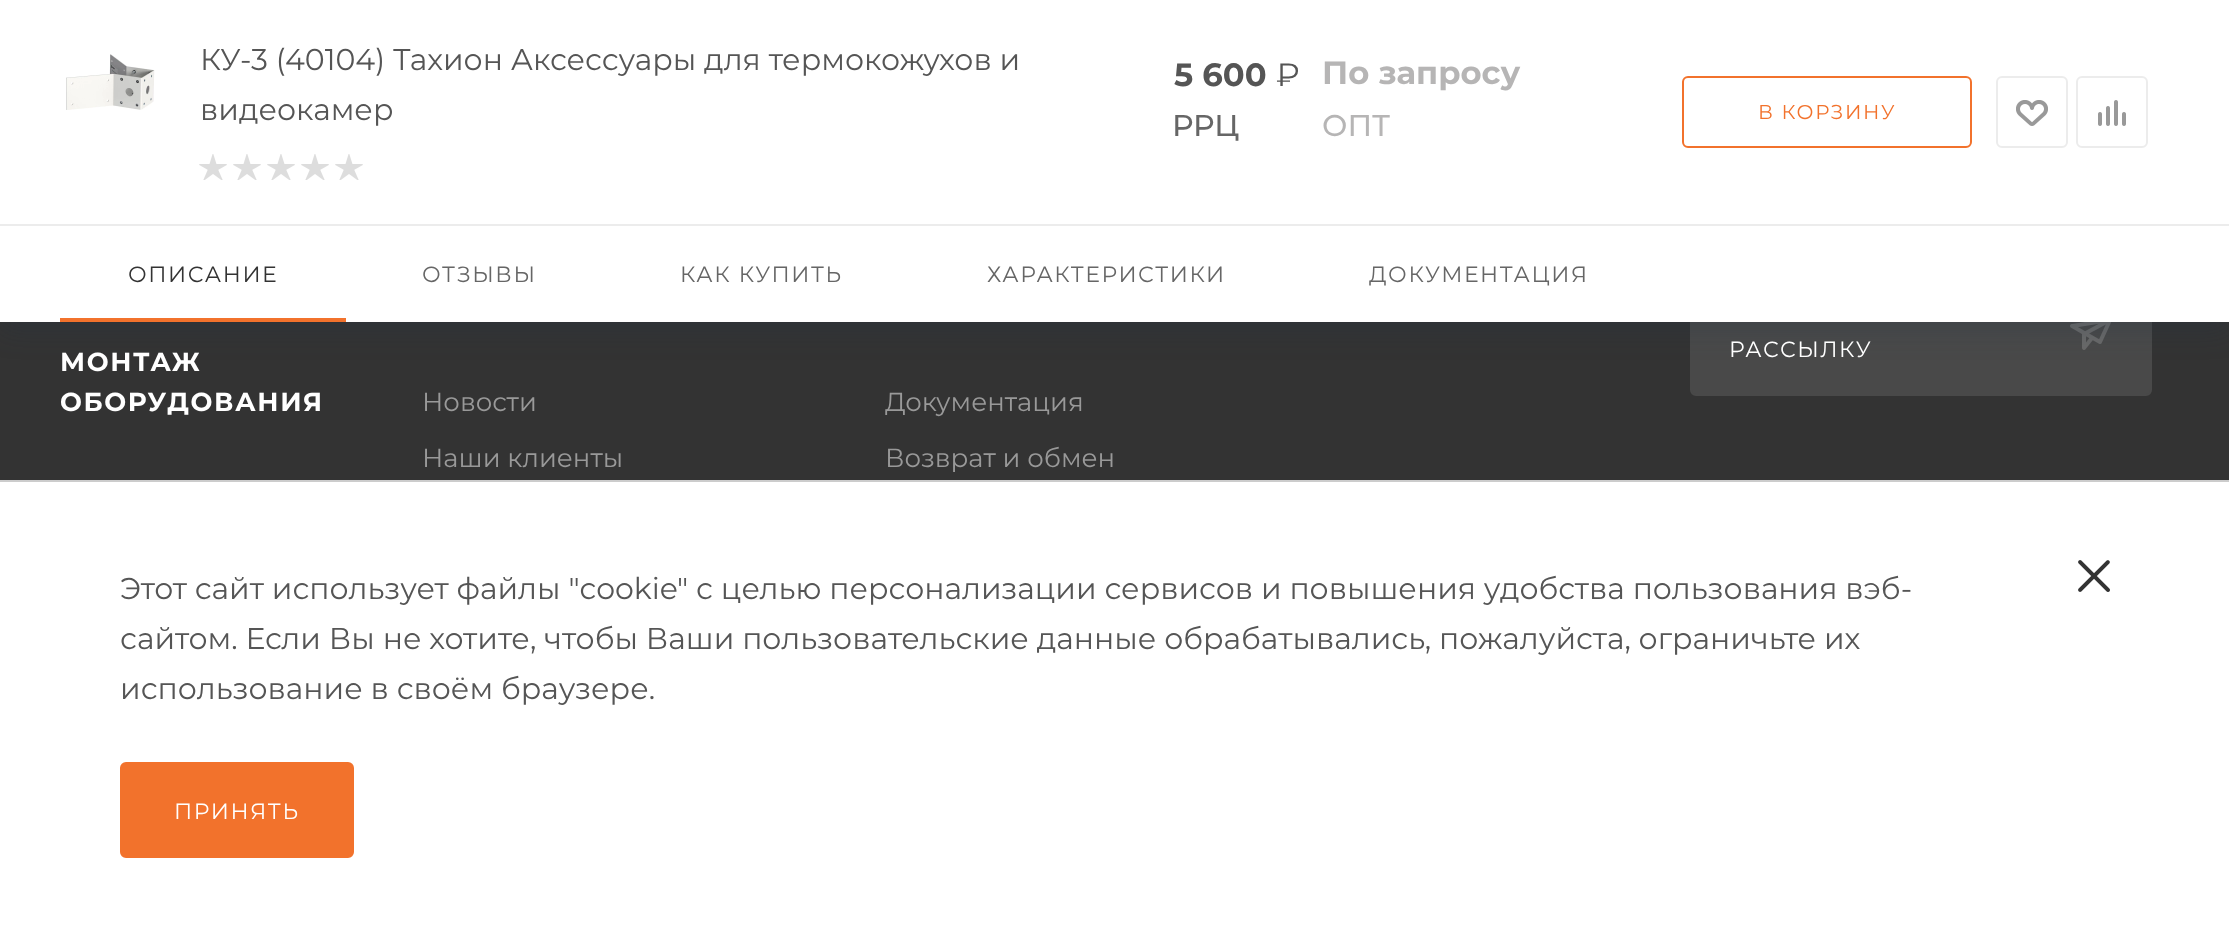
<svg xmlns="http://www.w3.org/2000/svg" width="2229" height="938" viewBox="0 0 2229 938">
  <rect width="100%" height="100%" fill="#333"/>
  <rect x="1691" y="273" width="460" height="122" rx="5" fill="#494949" stroke="#494949" stroke-width="2"/>
  <image x="2070" y="322" width="41" height="28" href="img/5.png"/>
  <path d="M0 232h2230v98H0z" fill="#20364a3b" filter="blur(14px)"/>
  <path d="M0 0h2229v224H0z" fill="#fff"/>
  <image x="66" y="54" width="89" height="56" href="img/1.png"/>
  <image x="199" y="154" width="28" height="26" href="img/2.png"/>
  <image x="233" y="154" width="28" height="26" href="img/2.png"/>
  <image x="267" y="154" width="28" height="26" href="img/2.png"/>
  <image x="301" y="154" width="28" height="26" href="img/2.png"/>
  <image x="335" y="154" width="28" height="26" href="img/2.png"/>
  <rect x="1683" y="77" width="288" height="70" rx="5" fill="none" stroke="#f2722c" stroke-width="2"/>
  <rect x="1997" y="77" width="70" height="70" rx="5" fill="none" stroke="#ececec" stroke-width="2"/>
  <image x="2016" y="100" width="32" height="26" href="img/3.png"/>
  <rect x="2077" y="77" width="70" height="70" rx="5" fill="none" stroke="#ececec" stroke-width="2"/>
  <image x="2098" y="100" width="28" height="26" href="img/4.png"/>
  <path d="M0 226h2229v96H0z" fill="#fff"/>
  <path d="M0 224h2229v2H0z" fill="#ececec"/>
  <path d="M60 318h286v4H60z" fill="#f2722c"/>
  <path d="M0 482h2229v456H0z" fill="#fff"/>
  <path d="M0 480h2229v2H0z" fill="#ccc"/>
  <image x="2078" y="560" width="32" height="32" href="img/6.png"/>
  <rect x="121" y="763" width="232" height="94" rx="5" fill="#f2722c" stroke="#f2722c" stroke-width="2"/>
  <g font-family="Montserrat" font-size="30" fill="#555">
    <text x="200" y="70">КУ-3 (40104) Тахион Аксессуары для термокожухов и</text>
    <text x="200" y="120">видеокамер</text>
  </g>
  <text x="1174" y="86" font-family="Montserrat" font-size="32.25" font-weight="bold" fill="#555">5 600</text>
  <text x="1276" y="86" font-family="'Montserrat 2'" font-size="32.25" fill="#555">₽</text>
  <text x="1172" y="136" font-family="Montserrat" font-size="30" font-weight="500" fill="#666">РРЦ</text>
  <text x="1322" y="84" font-family="Montserrat" font-size="32.25" font-weight="bold" fill="#b6b5b5">По запросу</text>
  <text x="1322" y="136" font-family="Montserrat" font-size="30" font-weight="500" fill="#b6b5b5">ОПТ</text>
  <text x="1758" y="119" font-family="Montserrat" font-size="20" letter-spacing="1.6" fill="#f2722c">В КОРЗИНУ</text>
  <text x="128" y="282" font-family="Montserrat" font-size="22" letter-spacing="1.6" fill="#333">ОПИСАНИЕ</text>
  <g font-family="Montserrat" font-size="22" letter-spacing="1.6" fill="#666">
    <text x="422" y="282">ОТЗЫВЫ</text>
    <text x="680" y="282">КАК КУПИТЬ</text>
    <text x="987" y="282">ХАРАКТЕРИСТИКИ</text>
    <text x="1369" y="282">ДОКУМЕНТАЦИЯ</text>
  </g>
  <text x="1729" y="357" font-family="Montserrat" font-size="22" letter-spacing="1.6" fill="#fff">РАССЫЛКУ</text>
  <g font-family="Montserrat" font-size="26" font-weight="bold" letter-spacing="1.6" fill="#fff">
    <text x="60" y="371">МОНТАЖ</text>
    <text x="60" y="411">ОБОРУДОВАНИЯ</text>
  </g>
  <g font-family="Montserrat" font-size="26" fill="#999">
    <text x="422" y="411">Новости</text>
    <text x="422" y="467">Наши клиенты</text>
    <text x="885" y="411">Документация</text>
    <text x="885" y="467">Возврат и обмен</text>
  </g>
  <g font-family="Montserrat" font-size="30" fill="#555">
    <text x="120" y="599">Этот сайт использует файлы "cookie" с целью персонализации сервисов и повышения удобства пользования вэб-</text>
    <text x="120" y="649">сайтом. Если Вы не хотите, чтобы Ваши пользовательские данные обрабатывались, пожалуйста, ограничьте их</text>
    <text x="120" y="699">использование в своём браузере.</text>
  </g>
  <text x="174" y="819" font-family="Montserrat" font-size="22" letter-spacing="1.6" fill="#fff">ПРИНЯТЬ</text>
</svg>
